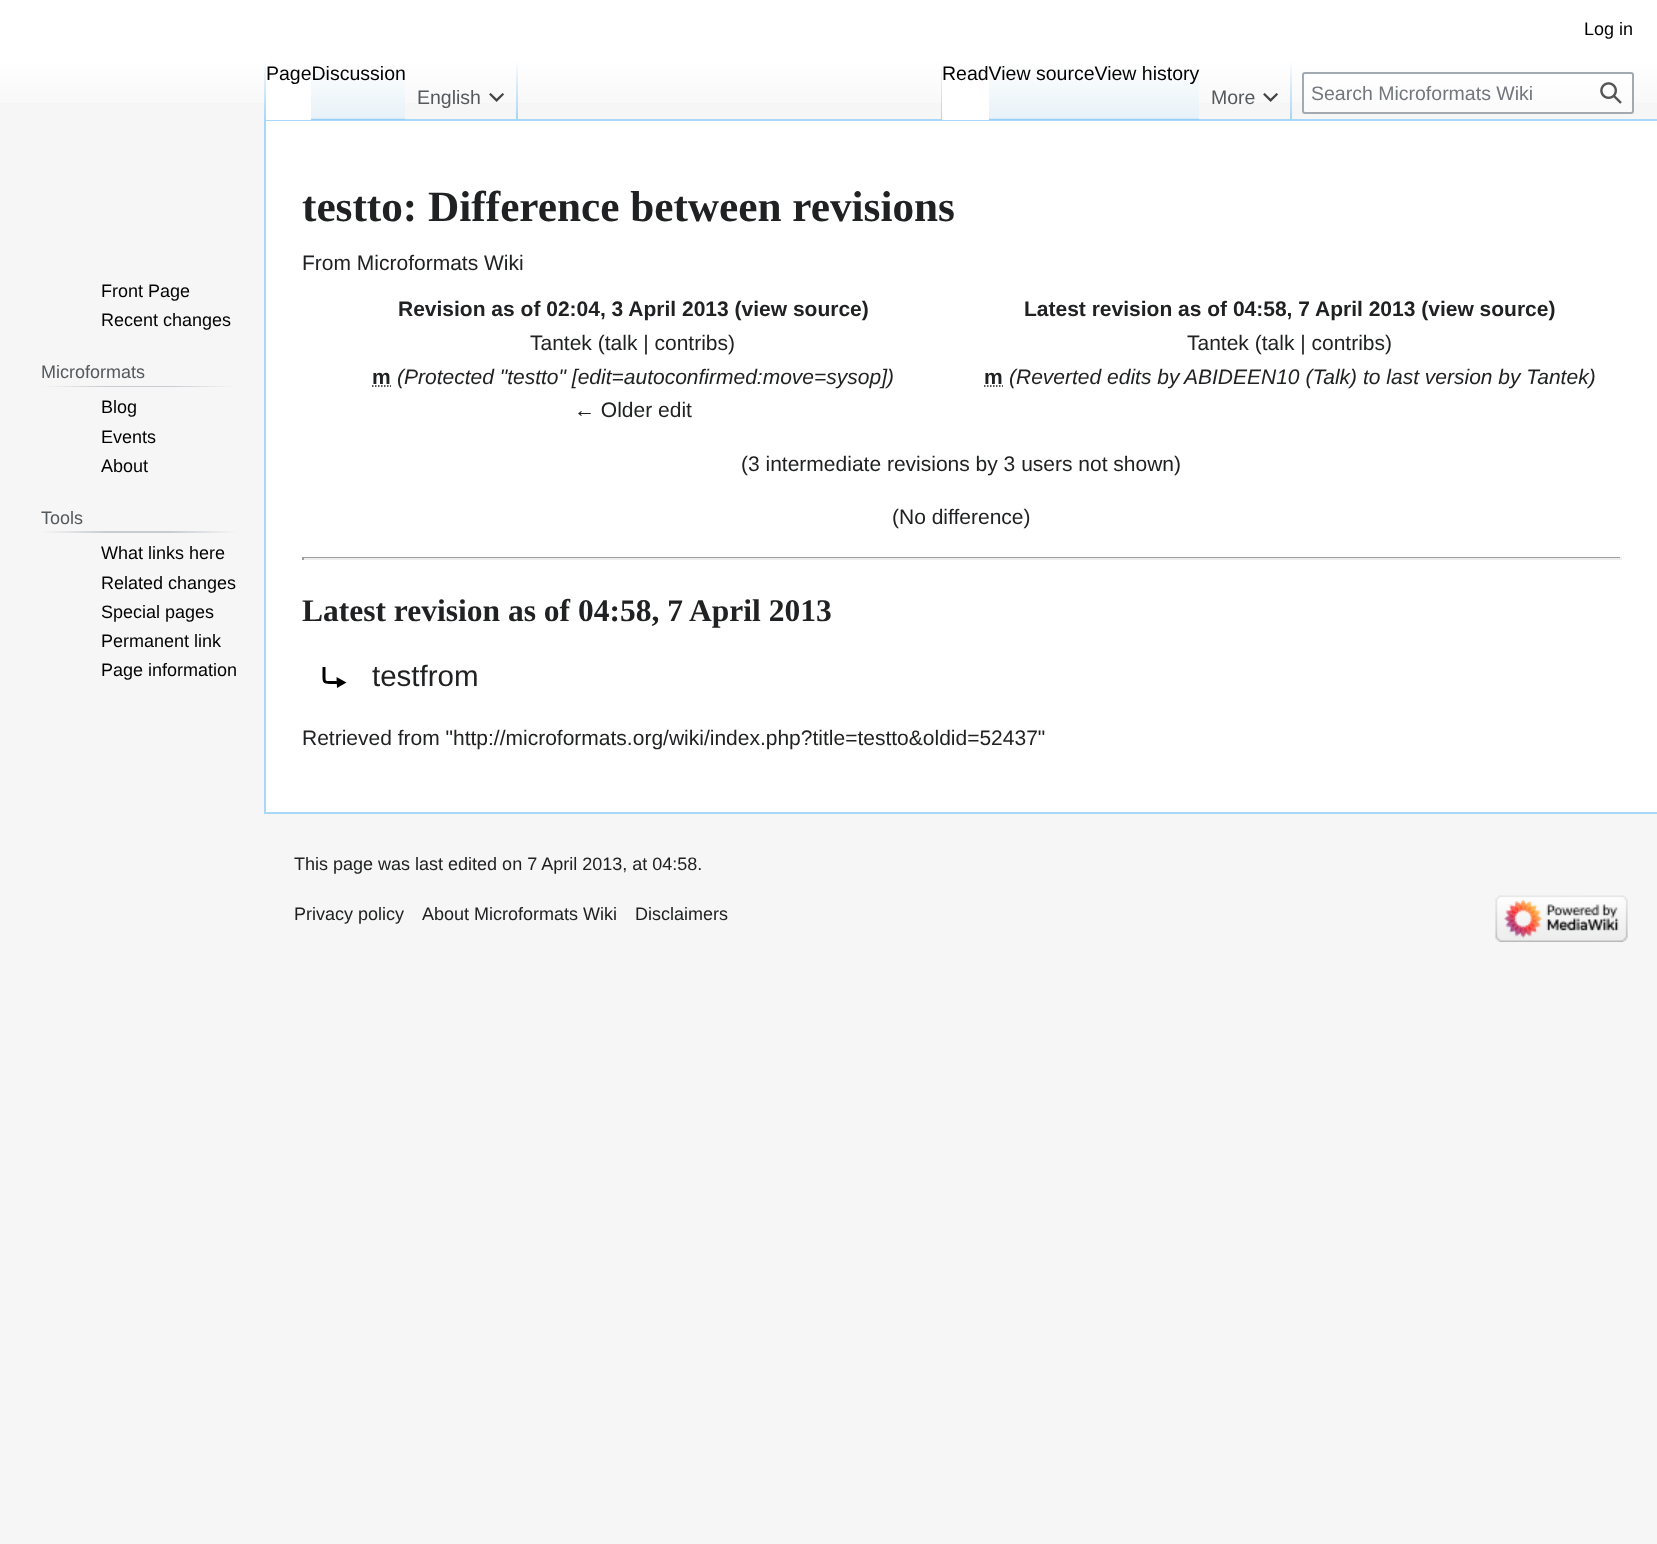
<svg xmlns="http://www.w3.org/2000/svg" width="1657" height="1544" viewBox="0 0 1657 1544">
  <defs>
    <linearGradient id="g1" gradientUnits="userSpaceOnUse" x1="829" y1="0" x2="829" y2="120"><stop offset="0.5" stop-color="#fff"/><stop offset="1" stop-color="#f6f6f6"/></linearGradient>
    <linearGradient id="g2" gradientUnits="userSpaceOnUse" x1="265" y1="60" x2="265" y2="120"><stop offset="0" stop-color="#a7d7f9" stop-opacity="0"/><stop offset="1" stop-color="#a7d7f9"/></linearGradient>
    <linearGradient id="g3" gradientUnits="userSpaceOnUse" x1="358" y1="120" x2="358" y2="60"><stop offset="0" stop-color="#77c1f6"/><stop offset="0.03" stop-color="#e8f2f8"/><stop offset="1" stop-color="#fff"/></linearGradient>
    <linearGradient id="g4" gradientUnits="userSpaceOnUse" x1="517" y1="60" x2="517" y2="120"><stop offset="0" stop-color="#a7d7f9" stop-opacity="0"/><stop offset="1" stop-color="#a7d7f9"/></linearGradient>
    <linearGradient id="g5" gradientUnits="userSpaceOnUse" x1="941" y1="60" x2="941" y2="120"><stop offset="0" stop-color="#a7d7f9" stop-opacity="0"/><stop offset="1" stop-color="#a7d7f9"/></linearGradient>
    <linearGradient id="g6" gradientUnits="userSpaceOnUse" x1="1042" y1="120" x2="1042" y2="60"><stop offset="0" stop-color="#77c1f6"/><stop offset="0.03" stop-color="#e8f2f8"/><stop offset="1" stop-color="#fff"/></linearGradient>
    <linearGradient id="g7" gradientUnits="userSpaceOnUse" x1="1147" y1="120" x2="1147" y2="60"><stop offset="0" stop-color="#77c1f6"/><stop offset="0.03" stop-color="#e8f2f8"/><stop offset="1" stop-color="#fff"/></linearGradient>
    <linearGradient id="g8" gradientUnits="userSpaceOnUse" x1="1291" y1="60" x2="1291" y2="120"><stop offset="0" stop-color="#a7d7f9" stop-opacity="0"/><stop offset="1" stop-color="#a7d7f9"/></linearGradient>
    <linearGradient id="g9" gradientUnits="userSpaceOnUse" x1="41" y1="386" x2="237" y2="386"><stop offset="0" stop-color="#f6f6f6"/><stop offset="0.33" stop-color="#c8ccd1"/><stop offset="0.66" stop-color="#c8ccd1"/><stop offset="1" stop-color="#f6f6f6"/></linearGradient>
    <linearGradient id="g10" gradientUnits="userSpaceOnUse" x1="41" y1="532" x2="237" y2="532"><stop offset="0" stop-color="#f6f6f6"/><stop offset="0.33" stop-color="#c8ccd1"/><stop offset="0.66" stop-color="#c8ccd1"/><stop offset="1" stop-color="#f6f6f6"/></linearGradient>
  </defs>
  <rect width="100%" height="100%" fill="#f6f6f6"/>
  <path d="M0 0h1657v103H0z" fill="url(#g1)"/>
  <path d="M264 119h1393v2H264z" fill="#a7d7f9"/>
  <path d="M264 812h1393v2H264z" fill="#a7d7f9"/>
  <path d="M264 119h2v694H264z" fill="#a7d7f9"/>
  <path d="M264 60h2v60H264z" fill="url(#g2)"/>
  <path d="M266 77h45v43H266z" fill="#fff"/>
  <path d="M311 69h94v51H311z" fill="url(#g3)"/>
  <path d="M516 60h2v60H516z" fill="url(#g4)"/>
  <image x="489" y="93" width="15" height="9" href="img/1.png"/>
  <path d="M941 60h1v60H941z" fill="url(#g5)"/>
  <path d="M942 77h47v43H942z" fill="#fff"/>
  <path d="M989 69h106v51H989z" fill="url(#g6)"/>
  <path d="M1095 69h104v51H1095z" fill="url(#g7)"/>
  <path d="M1290 60h2v60H1290z" fill="url(#g8)"/>
  <image x="1263" y="93" width="15" height="9" href="img/1.png"/>
  <rect x="1303" y="73" width="330" height="40" rx="2" fill="#ffffff80" stroke="#a2a9b1" stroke-width="2"/>
  <image x="1600" y="82" width="22" height="22" href="img/2.png"/>
  <path d="M41 386h196v1H41z" fill="url(#g9)"/>
  <path d="M41 531h196v2H41z" fill="url(#g10)"/>
  <path d="M266 121h1391v691H266z" fill="#fff"/>
  <path d="M372 386H391" fill="none" stroke="#202122" stroke-width="1.5" stroke-dasharray="1.5 1.5"/>
  <path d="M984 386H1003" fill="none" stroke="#202122" stroke-width="1.5" stroke-dasharray="1.5 1.5"/>
  <path d="M302 557h1320v1H302z" fill="#9f9f9f"/>
  <path d="M1620 557h2v3H1620z" fill="#eee"/>
  <path d="M302 558h1320v2H302z" fill="#eee"/>
  <path d="M302 557h2v3H302z" fill="#9f9f9f"/>
  <path d="M324 667V675C324 681.5 323.5 682.5 330 682.5H340.5" fill="none" stroke="#000" stroke-width="3"/>
  <path d="M336.5 677L337 688L346.5 682.5Z" fill="#000"/>
  <image x="1495" y="895" width="133" height="47" href="img/3.png"/>
  <text x="1584" y="35" font-family="Liberation Sans" font-size="18" fill="#000">Log in</text>
  <text x="266" y="80" font-family="Liberation Sans" font-size="19.5" fill="#000">PageDiscussion</text>
  <text x="417" y="104" font-family="Liberation Sans" font-size="19.5" fill="#54595d">English</text>
  <text x="942" y="80" font-family="Liberation Sans" font-size="19.5" fill="#000">ReadView sourceView history</text>
  <text x="1211" y="104" font-family="Liberation Sans" font-size="19.5" fill="#54595d">More</text>
  <text x="1311" y="100" font-family="Liberation Sans" font-size="19.5" fill="#72777d">Search Microformats Wiki</text>
  <g font-family="Liberation Sans" font-size="18" fill="#000">
    <text x="101" y="297">Front Page</text>
    <text x="101" y="326">Recent changes</text>
  </g>
  <text x="41" y="378" font-family="Liberation Sans" font-size="18" fill="#54595d">Microformats</text>
  <g font-family="Liberation Sans" font-size="18" fill="#000">
    <text x="101" y="413">Blog</text>
    <text x="101" y="443">Events</text>
    <text x="101" y="472">About</text>
  </g>
  <text x="41" y="524" font-family="Liberation Sans" font-size="18" fill="#54595d">Tools</text>
  <g font-family="Liberation Sans" font-size="18" fill="#000">
    <text x="101" y="559">What links here</text>
    <text x="101" y="589">Related changes</text>
    <text x="101" y="618">Special pages</text>
    <text x="101" y="647">Permanent link</text>
    <text x="101" y="676">Page information</text>
  </g>
  <text x="302" y="221" font-family="Liberation Serif" font-size="43.25" font-weight="bold" fill="#202122">testto: Difference between revisions</text>
  <text x="302" y="270" font-family="Liberation Sans" font-size="21" fill="#202122">From Microformats Wiki</text>
  <text x="398" y="316" font-family="Liberation Sans" font-size="21" font-weight="bold" fill="#202122">Revision as of 02:04, 3 April 2013 (view source)</text>
  <text x="530" y="350" font-family="Liberation Sans" font-size="21" fill="#202122">Tantek (talk | contribs)</text>
  <text x="372" y="384" font-family="Liberation Sans" font-size="21" font-weight="bold" fill="#202122">m</text>
  <text x="397" y="384" font-family="Liberation Sans" font-size="21" font-style="italic" fill="#202122">(Protected "testto" [edit=autoconfirmed:move=sysop])</text>
  <text x="574" y="417" font-family="Liberation Sans" font-size="21" fill="#202122">← Older edit</text>
  <text x="1024" y="316" font-family="Liberation Sans" font-size="21" font-weight="bold" fill="#202122">Latest revision as of 04:58, 7 April 2013 (view source)</text>
  <text x="1187" y="350" font-family="Liberation Sans" font-size="21" fill="#202122">Tantek (talk | contribs)</text>
  <text x="984" y="384" font-family="Liberation Sans" font-size="21" font-weight="bold" fill="#202122">m</text>
  <g font-family="Liberation Sans" font-size="21" font-style="italic" fill="#202122">
    <text x="1009" y="384">(Reverted edits by</text>
    <text x="1184" y="384">ABIDEEN10 (Talk) to last version by Tantek)</text>
  </g>
  <g font-family="Liberation Sans" font-size="21" fill="#202122">
    <text x="741" y="471">(3 intermediate revisions by 3 users not shown)</text>
    <text x="892" y="524">(No difference)</text>
  </g>
  <text x="302" y="621" font-family="Liberation Serif" font-size="31.5" font-weight="bold" fill="#202122">Latest revision as of 04:58, 7 April 2013</text>
  <text x="372" y="686" font-family="Liberation Sans" font-size="29.5" fill="#202122">testfrom</text>
  <text x="302" y="745" font-family="Liberation Sans" font-size="21" fill="#202122">Retrieved from "http://microformats.org/wiki/index.php?title=testto&amp;oldid=52437"</text>
  <g font-family="Liberation Sans" font-size="18" fill="#202122">
    <text x="294" y="870">This page was last edited on 7 April 2013, at 04:58.</text>
    <text x="294" y="920">Privacy policy</text>
    <text x="422" y="920">About Microformats Wiki</text>
    <text x="635" y="920">Disclaimers</text>
  </g>
</svg>
